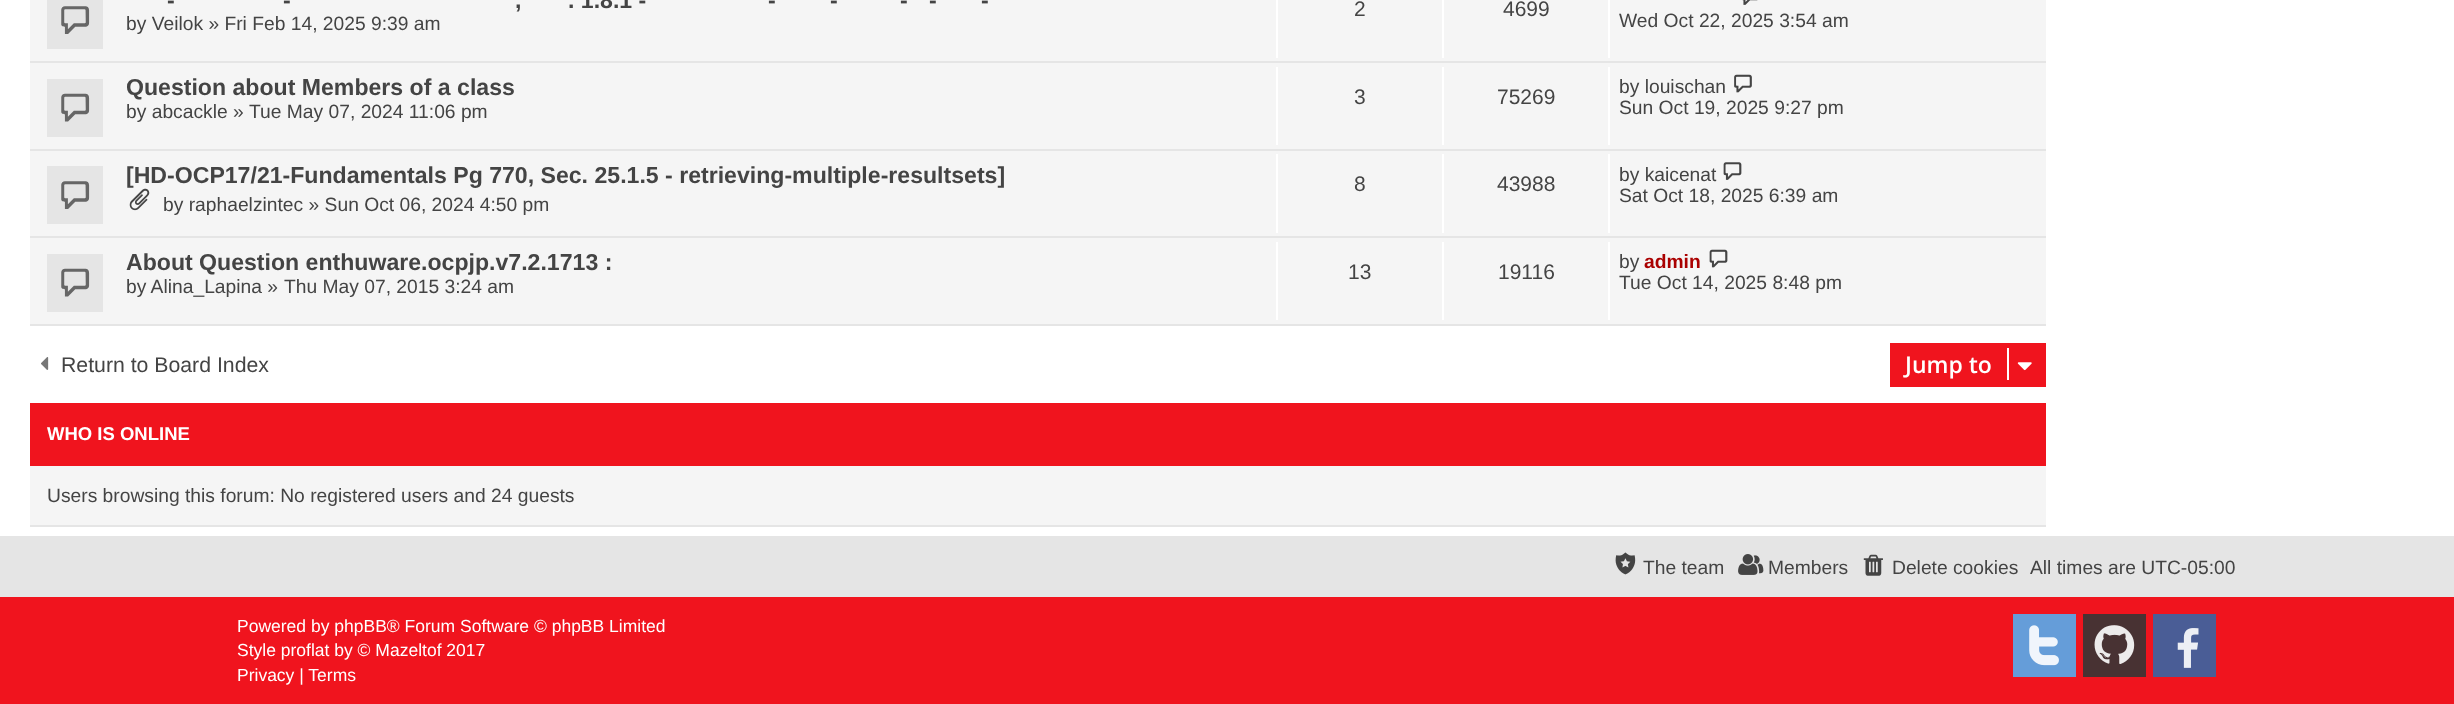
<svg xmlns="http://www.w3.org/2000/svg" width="2454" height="704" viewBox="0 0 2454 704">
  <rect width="100%" height="100%" fill="#fff"/>
  <path d="M30 0h2016v61H30z" fill="#f5f5f5"/>
  <path d="M30 61h2016v2H30z" fill="#e5e5e5"/>
  <path d="M47 0h56v49H47z" fill="#e5e5e5"/>
  <image x="61" y="6" width="29" height="28" href="img/1.png"/>
  <path d="M1276 0h2v58H1276z" fill="#fff"/>
  <path d="M1442 0h2v58H1442z" fill="#fff"/>
  <path d="M1608 0h2v58H1608z" fill="#fff"/>
  <image x="1742" y="0" width="16" height="5" href="img/2.png"/>
  <path d="M30 63h2016v86H30z" fill="#f5f5f5"/>
  <path d="M30 149h2016v2H30z" fill="#e5e5e5"/>
  <path d="M47 79h56v58H47z" fill="#e5e5e5"/>
  <image x="61" y="93" width="29" height="29" href="img/3.png"/>
  <path d="M1276 67h2v78H1276z" fill="#fff"/>
  <path d="M1442 67h2v78H1442z" fill="#fff"/>
  <path d="M1608 67h2v78H1608z" fill="#fff"/>
  <image x="1734" y="74" width="18" height="19" href="img/4.png"/>
  <path d="M30 151h2016v85H30z" fill="#f5f5f5"/>
  <path d="M30 236h2016v2H30z" fill="#e5e5e5"/>
  <path d="M47 166h56v58H47z" fill="#e5e5e5"/>
  <image x="61" y="181" width="29" height="28" href="img/1.png"/>
  <image x="129" y="188" width="21" height="23" href="img/5.png"/>
  <path d="M1276 154h2v79H1276z" fill="#fff"/>
  <path d="M1442 154h2v79H1442z" fill="#fff"/>
  <path d="M1608 154h2v79H1608z" fill="#fff"/>
  <image x="1723" y="162" width="19" height="18" href="img/6.png"/>
  <path d="M30 238h2016v86H30z" fill="#f5f5f5"/>
  <path d="M30 324h2016v2H30z" fill="#e5e5e5"/>
  <path d="M47 254h56v58H47z" fill="#e5e5e5"/>
  <image x="61" y="268" width="29" height="29" href="img/3.png"/>
  <path d="M1276 242h2v78H1276z" fill="#fff"/>
  <path d="M1442 242h2v78H1442z" fill="#fff"/>
  <path d="M1608 242h2v78H1608z" fill="#fff"/>
  <image x="1709" y="249" width="19" height="19" href="img/7.png"/>
  <image x="41" y="357" width="8" height="13" href="img/8.png"/>
  <path d="M1890 343h156v44H1890z" fill="#f0141e"/>
  <path d="M2007 348h2v32H2007z" fill="#fff"/>
  <image x="2017" y="362" width="15" height="9" href="img/9.png"/>
  <path d="M30 403h2016v63H30z" fill="#f0141e"/>
  <path d="M30 466h2016v59H30z" fill="#f5f5f5"/>
  <path d="M30 525h2016v2H30z" fill="#e5e5e5"/>
  <path d="M0 536h2454v61H0z" fill="#e5e5e5"/>
  <image x="1615" y="552" width="21" height="23" href="img/10.png"/>
  <image x="1738" y="554" width="26" height="21" href="img/11.png"/>
  <image x="1863" y="554" width="20" height="22" href="img/12.png"/>
  <path d="M0 597h2454v107H0z" fill="#f0141e"/>
  <path d="M2013 614h63v63H2013z" fill="#659dd9"/>
  <image x="2029" y="625" width="30" height="41" href="img/13.png"/>
  <path d="M2083 614h63v63H2083z" fill="#483233"/>
  <image x="2094" y="625" width="41" height="39" href="img/14.png"/>
  <path d="M2153 614h63v63H2153z" fill="#4a5d96"/>
  <image x="2177" y="628" width="22" height="40" href="img/15.png"/>
  <g font-family="Liberation Sans" font-size="23.1" font-weight="bold" fill="#444">
    <text x="167" y="8">-</text>
    <text x="283" y="8">-</text>
    <text x="568" y="8">. 1.8.1 -</text>
    <text x="768" y="8">-</text>
    <text x="830" y="8">-</text>
    <text x="900" y="8">-</text>
    <text x="929" y="8">-</text>
    <text x="981" y="8">-</text>
    <text x="515" y="8">,</text>
  </g>
  <text x="126" y="30" font-family="Liberation Sans" font-size="19.25" fill="#444">by Veilok » Fri Feb 14, 2025 9:39 am</text>
  <g font-family="Liberation Sans" font-size="21" fill="#444">
    <text x="1354" y="16">2</text>
    <text x="1503" y="16">4699</text>
  </g>
  <text x="1619" y="27" font-family="Liberation Sans" font-size="19.25" fill="#444">Wed Oct 22, 2025 3:54 am</text>
  <text x="126" y="95" font-family="Liberation Sans" font-size="23.1" font-weight="bold" fill="#444">Question about Members of a class</text>
  <g font-family="Liberation Sans" font-size="19.25" fill="#444">
    <text x="126" y="118">by abcackle »</text>
    <text x="249" y="118">Tue May 07, 2024 11:06 pm</text>
  </g>
  <g font-family="Liberation Sans" font-size="21" fill="#444">
    <text x="1354" y="104">3</text>
    <text x="1497" y="104">75269</text>
  </g>
  <g font-family="Liberation Sans" font-size="19.25" fill="#444">
    <text x="1619" y="93">by louischan</text>
    <text x="1619" y="114">Sun Oct 19, 2025 9:27 pm</text>
  </g>
  <text x="126" y="183" font-family="Liberation Sans" font-size="23.1" font-weight="bold" fill="#444">[HD-OCP17/21-Fundamentals Pg 770, Sec. 25.1.5 - retrieving-multiple-resultsets]</text>
  <text x="163" y="211" font-family="Liberation Sans" font-size="19.25" fill="#444">by raphaelzintec » Sun Oct 06, 2024 4:50 pm</text>
  <g font-family="Liberation Sans" font-size="21" fill="#444">
    <text x="1354" y="191">8</text>
    <text x="1497" y="191">43988</text>
  </g>
  <g font-family="Liberation Sans" font-size="19.25" fill="#444">
    <text x="1619" y="181">by kaicenat</text>
    <text x="1619" y="202">Sat Oct 18, 2025 6:39 am</text>
  </g>
  <text x="126" y="270" font-family="Liberation Sans" font-size="23.1" font-weight="bold" fill="#444">About Question enthuware.ocpjp.v7.2.1713 :</text>
  <g font-family="Liberation Sans" font-size="19.25" fill="#444">
    <text x="126" y="293">by Alina_Lapina »</text>
    <text x="284" y="293">Thu May 07, 2015 3:24 am</text>
  </g>
  <g font-family="Liberation Sans" font-size="21" fill="#444">
    <text x="1348" y="279">13</text>
    <text x="1498" y="279">19116</text>
  </g>
  <text x="1619" y="268" font-family="Liberation Sans" font-size="19.25" fill="#444">by</text>
  <text x="1644" y="268" font-family="Liberation Sans" font-size="19.25" font-weight="bold" fill="#a00">admin</text>
  <text x="1619" y="289" font-family="Liberation Sans" font-size="19.25" fill="#444">Tue Oct 14, 2025 8:48 pm</text>
  <text x="61" y="372" font-family="Liberation Sans" font-size="21.25" fill="#444">Return to Board Index</text>
  <text x="1905" y="373" font-family="Open Sans" font-size="23" font-weight="600" fill="#fff">Jump to</text>
  <text x="47" y="440" font-family="Liberation Sans" font-size="18.5" font-weight="bold" fill="#fff">WHO IS ONLINE</text>
  <g font-family="Liberation Sans" font-size="19.25" fill="#444">
    <text x="47" y="502">Users browsing this forum: No registered users and 24 guests</text>
    <text x="1643" y="574">The team</text>
    <text x="1768" y="574">Members</text>
    <text x="1892" y="574">Delete cookies</text>
    <text x="2030" y="574">All times are UTC-05:00</text>
  </g>
  <g font-family="Liberation Sans" font-size="17.5" fill="#fff">
    <text x="237" y="632">Powered by phpBB® Forum Software © phpBB Limited</text>
    <text x="237" y="656">Style proflat by © Mazeltof 2017</text>
    <text x="237" y="681">Privacy | Terms</text>
  </g>
</svg>
